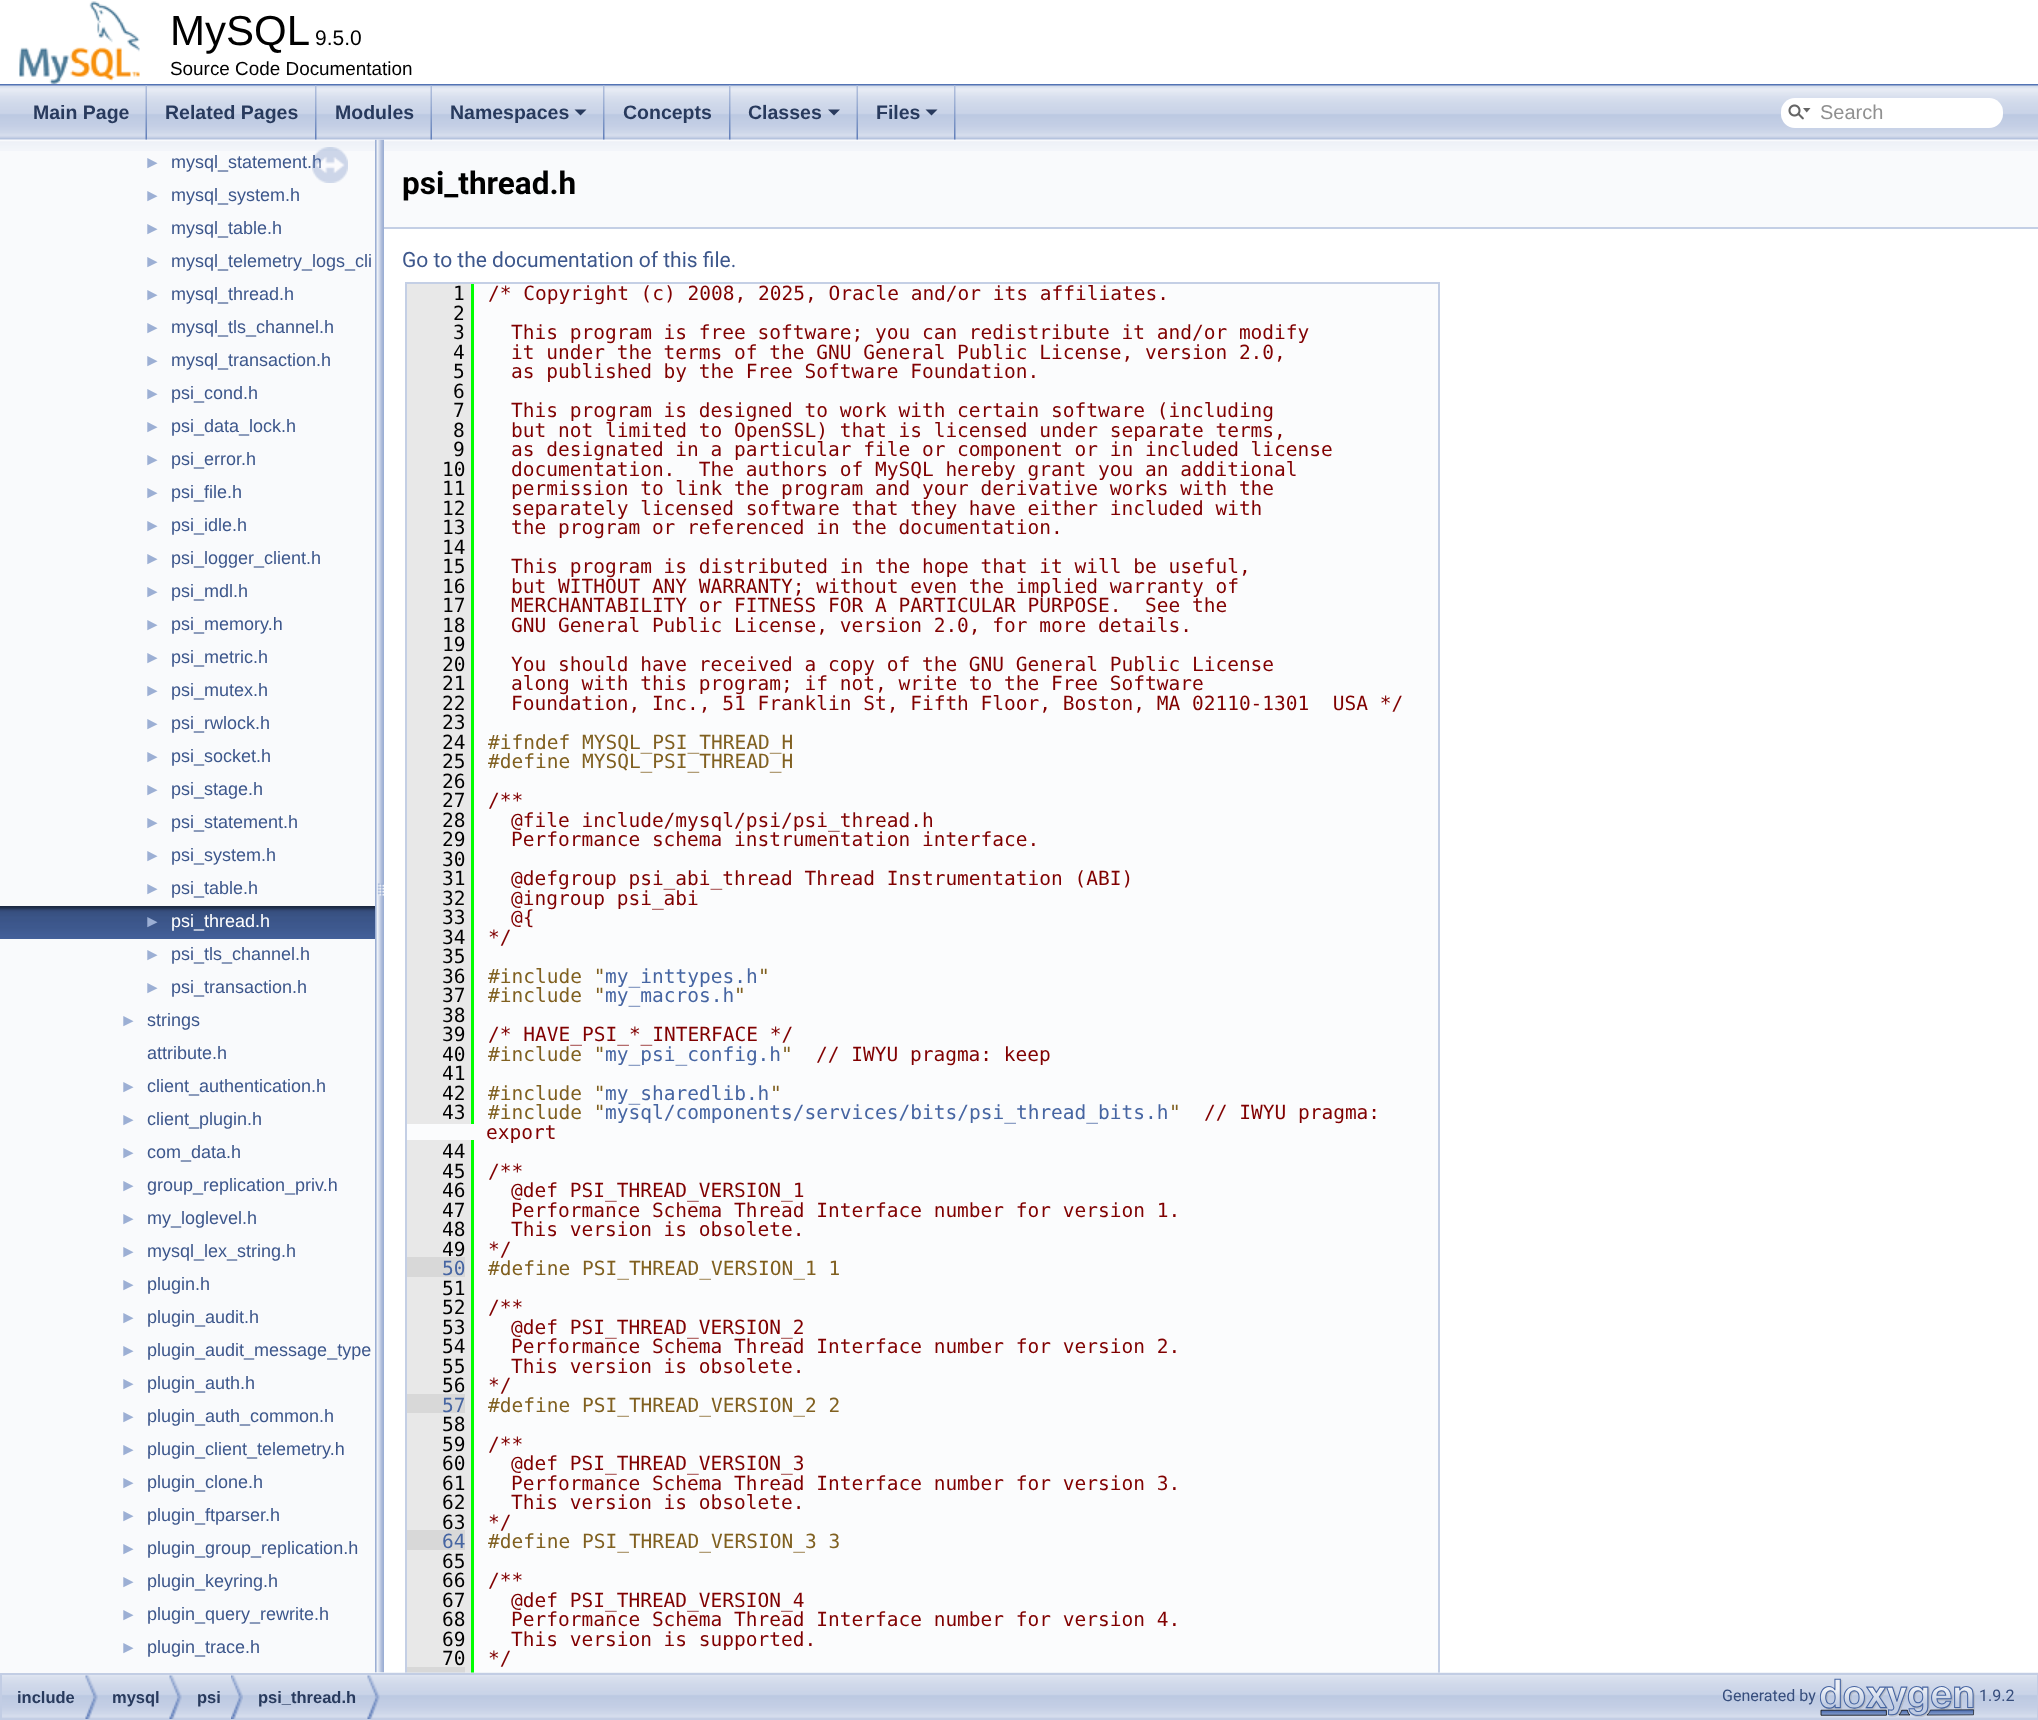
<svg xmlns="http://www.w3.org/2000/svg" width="2038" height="1720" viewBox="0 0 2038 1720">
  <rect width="100%" height="100%" fill="#fff"/>
  <path d="M0 84h2038v2H0z" fill="#5373b4"/>
  <image x="19" y="1" width="121" height="83" href="img/1.png"/>
  <path d="M407 284h1031v1389H407z" fill="#fbfcfd"/>
  <path d="M406 283h1033v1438H406z" fill="none" stroke="#c4cfe5" stroke-width="2"/>
  <path d="M407 1667h58v6H407z" fill="#d8d8d8"/>
  <path d="M471 1140h3v530H471z" fill="#0f0"/>
  <path d="M465 1667h9v6H465z" fill="#e8e8e8"/>
  <path d="M471 1667h3v6H471z" fill="#0f0"/>
  <image x="2" y="1672" width="2036" height="47" href="img/12.png"/>
  <image x="375" y="139" width="9" height="1534" href="img/10.png"/>
  <image x="0" y="85" width="2038" height="55" href="img/2.png"/>
  <image x="145" y="85" width="2" height="55" href="img/3.png"/>
  <image x="315" y="85" width="2" height="55" href="img/4.png"/>
  <image x="430" y="85" width="2" height="55" href="img/5.png"/>
  <image x="603" y="85" width="2" height="55" href="img/4.png"/>
  <path d="M574.5 109.5H586.5L580.5 115.5Z" fill="#283a5d"/>
  <image x="729" y="85" width="2" height="55" href="img/4.png"/>
  <image x="856" y="85" width="2" height="55" href="img/3.png"/>
  <path d="M828 109.5H840L834 115.5Z" fill="#283a5d"/>
  <image x="954" y="85" width="2" height="55" href="img/4.png"/>
  <path d="M925.5 109.5H937.5L931.5 115.5Z" fill="#283a5d"/>
  <rect x="1781" y="98" width="222" height="30" rx="14" fill="#fff"/>
  <image x="1788" y="104" width="23" height="16" href="img/6.png"/>
  <path d="M0 140h375v1533H0z" fill="#f9fafc"/>
  <image x="0" y="141" width="375" height="10" href="img/7.png"/>
  <image x="0" y="906" width="375" height="33" href="img/9.png"/>
  <path d="M384 140h1654v87H384z" fill="#f9fafc"/>
  <image x="384" y="141" width="1654" height="10" href="img/11.png"/>
  <path d="M384 227h1654v2H384z" fill="#c4cfe5"/>
  <path d="M407 284h64v840H407z" fill="#e8e8e8"/>
  <path d="M471 284h3v840H471z" fill="#0f0"/>
  <path d="M407 1140h64v117H407z" fill="#e8e8e8"/>
  <path d="M465 1257h6v20H465z" fill="#e8e8e8"/>
  <path d="M407 1257h58v20H407z" fill="#d8d8d8"/>
  <path d="M407 1277h64v117H407z" fill="#e8e8e8"/>
  <path d="M465 1394h6v19H465z" fill="#e8e8e8"/>
  <path d="M407 1394h58v19H407z" fill="#d8d8d8"/>
  <path d="M407 1413h64v117H407z" fill="#e8e8e8"/>
  <path d="M465 1530h6v20H465z" fill="#e8e8e8"/>
  <path d="M407 1530h58v20H407z" fill="#d8d8d8"/>
  <path d="M407 1550h64v117H407z" fill="#e8e8e8"/>
  <path d="M1 1674h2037v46H1z" fill="none" stroke="#c2cde4" stroke-width="2"/>
  <image x="85" y="1675" width="13" height="44" href="img/13.png"/>
  <image x="169" y="1675" width="13" height="44" href="img/13.png"/>
  <image x="231" y="1675" width="12" height="44" href="img/14.png"/>
  <image x="367" y="1675" width="13" height="44" href="img/15.png"/>
  <image x="1820" y="1678" width="155" height="40" href="img/16.png"/>
  <text x="170" y="45" font-family="Liberation Sans" font-size="42" fill="#000">MySQL</text>
  <text x="315" y="45" font-family="Liberation Sans" font-size="21" fill="#000">9.5.0</text>
  <text x="170" y="75" font-family="Liberation Sans" font-size="18.9" fill="#000">Source Code Documentation</text>
  <g font-family="Liberation Sans" font-size="19.5" font-weight="bold" fill="#283a5d">
    <text x="33" y="119">Main Page</text>
    <text x="165" y="119">Related Pages</text>
    <text x="335" y="119">Modules</text>
    <text x="450" y="119">Namespaces</text>
    <text x="623" y="119">Concepts</text>
    <text x="748" y="119">Classes</text>
    <text x="876" y="119">Files</text>
  </g>
  <text x="1820" y="119" font-family="Liberation Sans" font-size="20" fill="#909090">Search</text>
  <text x="144" y="168" font-family="Liberation Sans" font-size="17" fill="#9cafd4">►</text>
  <text x="171" y="168" font-family="Liberation Sans" font-size="18" fill="#3d578c">mysql_statement.h</text>
  <image x="312" y="147" width="36" height="36" href="img/8.png"/>
  <text x="144" y="201" font-family="Liberation Sans" font-size="17" fill="#9cafd4">►</text>
  <text x="171" y="201" font-family="Liberation Sans" font-size="18" fill="#3d578c">mysql_system.h</text>
  <text x="144" y="234" font-family="Liberation Sans" font-size="17" fill="#9cafd4">►</text>
  <text x="171" y="234" font-family="Liberation Sans" font-size="18" fill="#3d578c">mysql_table.h</text>
  <text x="144" y="267" font-family="Liberation Sans" font-size="17" fill="#9cafd4">►</text>
  <text x="171" y="267" font-family="Liberation Sans" font-size="18" fill="#3d578c">mysql_telemetry_logs_cli</text>
  <text x="144" y="300" font-family="Liberation Sans" font-size="17" fill="#9cafd4">►</text>
  <text x="171" y="300" font-family="Liberation Sans" font-size="18" fill="#3d578c">mysql_thread.h</text>
  <text x="144" y="333" font-family="Liberation Sans" font-size="17" fill="#9cafd4">►</text>
  <text x="171" y="333" font-family="Liberation Sans" font-size="18" fill="#3d578c">mysql_tls_channel.h</text>
  <text x="144" y="366" font-family="Liberation Sans" font-size="17" fill="#9cafd4">►</text>
  <text x="171" y="366" font-family="Liberation Sans" font-size="18" fill="#3d578c">mysql_transaction.h</text>
  <text x="144" y="399" font-family="Liberation Sans" font-size="17" fill="#9cafd4">►</text>
  <text x="171" y="399" font-family="Liberation Sans" font-size="18" fill="#3d578c">psi_cond.h</text>
  <text x="144" y="432" font-family="Liberation Sans" font-size="17" fill="#9cafd4">►</text>
  <text x="171" y="432" font-family="Liberation Sans" font-size="18" fill="#3d578c">psi_data_lock.h</text>
  <text x="144" y="465" font-family="Liberation Sans" font-size="17" fill="#9cafd4">►</text>
  <text x="171" y="465" font-family="Liberation Sans" font-size="18" fill="#3d578c">psi_error.h</text>
  <text x="144" y="498" font-family="Liberation Sans" font-size="17" fill="#9cafd4">►</text>
  <text x="171" y="498" font-family="Liberation Sans" font-size="18" fill="#3d578c">psi_file.h</text>
  <text x="144" y="531" font-family="Liberation Sans" font-size="17" fill="#9cafd4">►</text>
  <text x="171" y="531" font-family="Liberation Sans" font-size="18" fill="#3d578c">psi_idle.h</text>
  <text x="144" y="564" font-family="Liberation Sans" font-size="17" fill="#9cafd4">►</text>
  <text x="171" y="564" font-family="Liberation Sans" font-size="18" fill="#3d578c">psi_logger_client.h</text>
  <text x="144" y="597" font-family="Liberation Sans" font-size="17" fill="#9cafd4">►</text>
  <text x="171" y="597" font-family="Liberation Sans" font-size="18" fill="#3d578c">psi_mdl.h</text>
  <text x="144" y="630" font-family="Liberation Sans" font-size="17" fill="#9cafd4">►</text>
  <text x="171" y="630" font-family="Liberation Sans" font-size="18" fill="#3d578c">psi_memory.h</text>
  <text x="144" y="663" font-family="Liberation Sans" font-size="17" fill="#9cafd4">►</text>
  <text x="171" y="663" font-family="Liberation Sans" font-size="18" fill="#3d578c">psi_metric.h</text>
  <text x="144" y="696" font-family="Liberation Sans" font-size="17" fill="#9cafd4">►</text>
  <text x="171" y="696" font-family="Liberation Sans" font-size="18" fill="#3d578c">psi_mutex.h</text>
  <text x="144" y="729" font-family="Liberation Sans" font-size="17" fill="#9cafd4">►</text>
  <text x="171" y="729" font-family="Liberation Sans" font-size="18" fill="#3d578c">psi_rwlock.h</text>
  <text x="144" y="762" font-family="Liberation Sans" font-size="17" fill="#9cafd4">►</text>
  <text x="171" y="762" font-family="Liberation Sans" font-size="18" fill="#3d578c">psi_socket.h</text>
  <text x="144" y="795" font-family="Liberation Sans" font-size="17" fill="#9cafd4">►</text>
  <text x="171" y="795" font-family="Liberation Sans" font-size="18" fill="#3d578c">psi_stage.h</text>
  <text x="144" y="828" font-family="Liberation Sans" font-size="17" fill="#9cafd4">►</text>
  <text x="171" y="828" font-family="Liberation Sans" font-size="18" fill="#3d578c">psi_statement.h</text>
  <text x="144" y="861" font-family="Liberation Sans" font-size="17" fill="#9cafd4">►</text>
  <text x="171" y="861" font-family="Liberation Sans" font-size="18" fill="#3d578c">psi_system.h</text>
  <text x="144" y="894" font-family="Liberation Sans" font-size="17" fill="#9cafd4">►</text>
  <text x="171" y="894" font-family="Liberation Sans" font-size="18" fill="#3d578c">psi_table.h</text>
  <text x="144" y="927" font-family="Liberation Sans" font-size="17" fill="#9cafd4">►</text>
  <text x="171" y="927" font-family="Liberation Sans" font-size="18" fill="#fff">psi_thread.h</text>
  <text x="144" y="960" font-family="Liberation Sans" font-size="17" fill="#9cafd4">►</text>
  <text x="171" y="960" font-family="Liberation Sans" font-size="18" fill="#3d578c">psi_tls_channel.h</text>
  <text x="144" y="993" font-family="Liberation Sans" font-size="17" fill="#9cafd4">►</text>
  <text x="171" y="993" font-family="Liberation Sans" font-size="18" fill="#3d578c">psi_transaction.h</text>
  <text x="120" y="1026" font-family="Liberation Sans" font-size="17" fill="#9cafd4">►</text>
  <g font-family="Liberation Sans" font-size="18" fill="#3d578c">
    <text x="147" y="1026">strings</text>
    <text x="147" y="1059">attribute.h</text>
  </g>
  <text x="120" y="1092" font-family="Liberation Sans" font-size="17" fill="#9cafd4">►</text>
  <text x="147" y="1092" font-family="Liberation Sans" font-size="18" fill="#3d578c">client_authentication.h</text>
  <text x="120" y="1125" font-family="Liberation Sans" font-size="17" fill="#9cafd4">►</text>
  <text x="147" y="1125" font-family="Liberation Sans" font-size="18" fill="#3d578c">client_plugin.h</text>
  <text x="120" y="1158" font-family="Liberation Sans" font-size="17" fill="#9cafd4">►</text>
  <text x="147" y="1158" font-family="Liberation Sans" font-size="18" fill="#3d578c">com_data.h</text>
  <text x="120" y="1191" font-family="Liberation Sans" font-size="17" fill="#9cafd4">►</text>
  <text x="147" y="1191" font-family="Liberation Sans" font-size="18" fill="#3d578c">group_replication_priv.h</text>
  <text x="120" y="1224" font-family="Liberation Sans" font-size="17" fill="#9cafd4">►</text>
  <text x="147" y="1224" font-family="Liberation Sans" font-size="18" fill="#3d578c">my_loglevel.h</text>
  <text x="120" y="1257" font-family="Liberation Sans" font-size="17" fill="#9cafd4">►</text>
  <text x="147" y="1257" font-family="Liberation Sans" font-size="18" fill="#3d578c">mysql_lex_string.h</text>
  <text x="120" y="1290" font-family="Liberation Sans" font-size="17" fill="#9cafd4">►</text>
  <text x="147" y="1290" font-family="Liberation Sans" font-size="18" fill="#3d578c">plugin.h</text>
  <text x="120" y="1323" font-family="Liberation Sans" font-size="17" fill="#9cafd4">►</text>
  <text x="147" y="1323" font-family="Liberation Sans" font-size="18" fill="#3d578c">plugin_audit.h</text>
  <text x="120" y="1356" font-family="Liberation Sans" font-size="17" fill="#9cafd4">►</text>
  <text x="147" y="1356" font-family="Liberation Sans" font-size="18" fill="#3d578c">plugin_audit_message_type</text>
  <text x="120" y="1389" font-family="Liberation Sans" font-size="17" fill="#9cafd4">►</text>
  <text x="147" y="1389" font-family="Liberation Sans" font-size="18" fill="#3d578c">plugin_auth.h</text>
  <text x="120" y="1422" font-family="Liberation Sans" font-size="17" fill="#9cafd4">►</text>
  <text x="147" y="1422" font-family="Liberation Sans" font-size="18" fill="#3d578c">plugin_auth_common.h</text>
  <text x="120" y="1455" font-family="Liberation Sans" font-size="17" fill="#9cafd4">►</text>
  <text x="147" y="1455" font-family="Liberation Sans" font-size="18" fill="#3d578c">plugin_client_telemetry.h</text>
  <text x="120" y="1488" font-family="Liberation Sans" font-size="17" fill="#9cafd4">►</text>
  <text x="147" y="1488" font-family="Liberation Sans" font-size="18" fill="#3d578c">plugin_clone.h</text>
  <text x="120" y="1521" font-family="Liberation Sans" font-size="17" fill="#9cafd4">►</text>
  <text x="147" y="1521" font-family="Liberation Sans" font-size="18" fill="#3d578c">plugin_ftparser.h</text>
  <text x="120" y="1554" font-family="Liberation Sans" font-size="17" fill="#9cafd4">►</text>
  <text x="147" y="1554" font-family="Liberation Sans" font-size="18" fill="#3d578c">plugin_group_replication.h</text>
  <text x="120" y="1587" font-family="Liberation Sans" font-size="17" fill="#9cafd4">►</text>
  <text x="147" y="1587" font-family="Liberation Sans" font-size="18" fill="#3d578c">plugin_keyring.h</text>
  <text x="120" y="1620" font-family="Liberation Sans" font-size="17" fill="#9cafd4">►</text>
  <text x="147" y="1620" font-family="Liberation Sans" font-size="18" fill="#3d578c">plugin_query_rewrite.h</text>
  <text x="120" y="1653" font-family="Liberation Sans" font-size="17" fill="#9cafd4">►</text>
  <text x="147" y="1653" font-family="Liberation Sans" font-size="18" fill="#3d578c">plugin_trace.h</text>
  <text x="402" y="194" font-family="Roboto" font-size="31.5" font-weight="bold" fill="#000">psi_thread.h</text>
  <text x="402" y="267" font-family="Roboto" font-size="21" fill="#3d578c">Go to the documentation of this file.</text>
  <text x="453" y="300" font-family="DejaVu Sans Mono" font-size="19.5" fill="#000">1</text>
  <text x="488" y="300" font-family="DejaVu Sans Mono" font-size="19.5" fill="#800000">/* Copyright (c) 2008, 2025, Oracle and/or its affiliates.</text>
  <g font-family="DejaVu Sans Mono" font-size="19.5" fill="#000">
    <text x="453" y="320">2</text>
    <text x="453" y="339">3</text>
  </g>
  <text x="511" y="339" font-family="DejaVu Sans Mono" font-size="19.5" fill="#800000">This program is free software; you can redistribute it and/or modify</text>
  <text x="453" y="359" font-family="DejaVu Sans Mono" font-size="19.5" fill="#000">4</text>
  <text x="511" y="359" font-family="DejaVu Sans Mono" font-size="19.5" fill="#800000">it under the terms of the GNU General Public License, version 2.0,</text>
  <text x="453" y="378" font-family="DejaVu Sans Mono" font-size="19.5" fill="#000">5</text>
  <text x="511" y="378" font-family="DejaVu Sans Mono" font-size="19.5" fill="#800000">as published by the Free Software Foundation.</text>
  <g font-family="DejaVu Sans Mono" font-size="19.5" fill="#000">
    <text x="453" y="398">6</text>
    <text x="453" y="417">7</text>
  </g>
  <text x="511" y="417" font-family="DejaVu Sans Mono" font-size="19.5" fill="#800000">This program is designed to work with certain software (including</text>
  <text x="453" y="437" font-family="DejaVu Sans Mono" font-size="19.5" fill="#000">8</text>
  <text x="511" y="437" font-family="DejaVu Sans Mono" font-size="19.5" fill="#800000">but not limited to OpenSSL) that is licensed under separate terms,</text>
  <text x="453" y="456" font-family="DejaVu Sans Mono" font-size="19.5" fill="#000">9</text>
  <text x="511" y="456" font-family="DejaVu Sans Mono" font-size="19.5" fill="#800000">as designated in a particular file or component or in included license</text>
  <text x="442" y="476" font-family="DejaVu Sans Mono" font-size="19.5" fill="#000">10</text>
  <text x="511" y="476" font-family="DejaVu Sans Mono" font-size="19.5" fill="#800000" xml:space="preserve">documentation.  The authors of MySQL hereby grant you an additional</text>
  <text x="442" y="495" font-family="DejaVu Sans Mono" font-size="19.5" fill="#000">11</text>
  <text x="511" y="495" font-family="DejaVu Sans Mono" font-size="19.5" fill="#800000">permission to link the program and your derivative works with the</text>
  <text x="442" y="515" font-family="DejaVu Sans Mono" font-size="19.5" fill="#000">12</text>
  <text x="511" y="515" font-family="DejaVu Sans Mono" font-size="19.5" fill="#800000">separately licensed software that they have either included with</text>
  <text x="442" y="534" font-family="DejaVu Sans Mono" font-size="19.5" fill="#000">13</text>
  <text x="511" y="534" font-family="DejaVu Sans Mono" font-size="19.5" fill="#800000">the program or referenced in the documentation.</text>
  <g font-family="DejaVu Sans Mono" font-size="19.5" fill="#000">
    <text x="442" y="554">14</text>
    <text x="442" y="573">15</text>
  </g>
  <text x="511" y="573" font-family="DejaVu Sans Mono" font-size="19.5" fill="#800000">This program is distributed in the hope that it will be useful,</text>
  <text x="442" y="593" font-family="DejaVu Sans Mono" font-size="19.5" fill="#000">16</text>
  <text x="511" y="593" font-family="DejaVu Sans Mono" font-size="19.5" fill="#800000">but WITHOUT ANY WARRANTY; without even the implied warranty of</text>
  <text x="442" y="612" font-family="DejaVu Sans Mono" font-size="19.5" fill="#000">17</text>
  <text x="511" y="612" font-family="DejaVu Sans Mono" font-size="19.5" fill="#800000" xml:space="preserve">MERCHANTABILITY or FITNESS FOR A PARTICULAR PURPOSE.  See the</text>
  <text x="442" y="632" font-family="DejaVu Sans Mono" font-size="19.5" fill="#000">18</text>
  <text x="511" y="632" font-family="DejaVu Sans Mono" font-size="19.5" fill="#800000">GNU General Public License, version 2.0, for more details.</text>
  <g font-family="DejaVu Sans Mono" font-size="19.5" fill="#000">
    <text x="442" y="651">19</text>
    <text x="442" y="671">20</text>
  </g>
  <text x="511" y="671" font-family="DejaVu Sans Mono" font-size="19.5" fill="#800000">You should have received a copy of the GNU General Public License</text>
  <text x="442" y="690" font-family="DejaVu Sans Mono" font-size="19.5" fill="#000">21</text>
  <text x="511" y="690" font-family="DejaVu Sans Mono" font-size="19.5" fill="#800000">along with this program; if not, write to the Free Software</text>
  <text x="442" y="710" font-family="DejaVu Sans Mono" font-size="19.5" fill="#000">22</text>
  <text x="511" y="710" font-family="DejaVu Sans Mono" font-size="19.5" fill="#800000" xml:space="preserve">Foundation, Inc., 51 Franklin St, Fifth Floor, Boston, MA 02110-1301  USA */</text>
  <g font-family="DejaVu Sans Mono" font-size="19.5" fill="#000">
    <text x="442" y="729">23</text>
    <text x="442" y="749">24</text>
  </g>
  <text x="488" y="749" font-family="DejaVu Sans Mono" font-size="19.5" fill="#806020">#ifndef MYSQL_PSI_THREAD_H</text>
  <text x="442" y="768" font-family="DejaVu Sans Mono" font-size="19.5" fill="#000">25</text>
  <text x="488" y="768" font-family="DejaVu Sans Mono" font-size="19.5" fill="#806020">#define MYSQL_PSI_THREAD_H</text>
  <g font-family="DejaVu Sans Mono" font-size="19.5" fill="#000">
    <text x="442" y="788">26</text>
    <text x="442" y="807">27</text>
  </g>
  <text x="488" y="807" font-family="DejaVu Sans Mono" font-size="19.5" fill="#800000">/**</text>
  <text x="442" y="827" font-family="DejaVu Sans Mono" font-size="19.5" fill="#000">28</text>
  <text x="511" y="827" font-family="DejaVu Sans Mono" font-size="19.5" fill="#800000">@file include/mysql/psi/psi_thread.h</text>
  <text x="442" y="846" font-family="DejaVu Sans Mono" font-size="19.5" fill="#000">29</text>
  <text x="511" y="846" font-family="DejaVu Sans Mono" font-size="19.5" fill="#800000">Performance schema instrumentation interface.</text>
  <g font-family="DejaVu Sans Mono" font-size="19.5" fill="#000">
    <text x="442" y="866">30</text>
    <text x="442" y="885">31</text>
  </g>
  <text x="511" y="885" font-family="DejaVu Sans Mono" font-size="19.5" fill="#800000">@defgroup psi_abi_thread Thread Instrumentation (ABI)</text>
  <text x="442" y="905" font-family="DejaVu Sans Mono" font-size="19.5" fill="#000">32</text>
  <text x="511" y="905" font-family="DejaVu Sans Mono" font-size="19.5" fill="#800000">@ingroup psi_abi</text>
  <text x="442" y="924" font-family="DejaVu Sans Mono" font-size="19.5" fill="#000">33</text>
  <text x="511" y="924" font-family="DejaVu Sans Mono" font-size="19.5" fill="#800000">@{</text>
  <text x="442" y="944" font-family="DejaVu Sans Mono" font-size="19.5" fill="#000">34</text>
  <text x="488" y="944" font-family="DejaVu Sans Mono" font-size="19.5" fill="#800000">*/</text>
  <g font-family="DejaVu Sans Mono" font-size="19.5" fill="#000">
    <text x="442" y="963">35</text>
    <text x="442" y="983">36</text>
  </g>
  <text x="488" y="983" font-family="DejaVu Sans Mono" font-size="19.5" fill="#806020">#include "</text>
  <text x="605" y="983" font-family="DejaVu Sans Mono" font-size="19.5" fill="#4665a2">my_inttypes.h</text>
  <text x="758" y="983" font-family="DejaVu Sans Mono" font-size="19.5" fill="#806020">"</text>
  <text x="442" y="1002" font-family="DejaVu Sans Mono" font-size="19.5" fill="#000">37</text>
  <text x="488" y="1002" font-family="DejaVu Sans Mono" font-size="19.5" fill="#806020">#include "</text>
  <text x="605" y="1002" font-family="DejaVu Sans Mono" font-size="19.5" fill="#4665a2">my_macros.h</text>
  <text x="734" y="1002" font-family="DejaVu Sans Mono" font-size="19.5" fill="#806020">"</text>
  <g font-family="DejaVu Sans Mono" font-size="19.5" fill="#000">
    <text x="442" y="1022">38</text>
    <text x="442" y="1041">39</text>
  </g>
  <text x="488" y="1041" font-family="DejaVu Sans Mono" font-size="19.5" fill="#800000">/* HAVE_PSI_*_INTERFACE */</text>
  <text x="442" y="1061" font-family="DejaVu Sans Mono" font-size="19.5" fill="#000">40</text>
  <text x="488" y="1061" font-family="DejaVu Sans Mono" font-size="19.5" fill="#806020">#include "</text>
  <text x="605" y="1061" font-family="DejaVu Sans Mono" font-size="19.5" fill="#4665a2">my_psi_config.h</text>
  <text x="781" y="1061" font-family="DejaVu Sans Mono" font-size="19.5" fill="#806020">"</text>
  <text x="816" y="1061" font-family="DejaVu Sans Mono" font-size="19.5" fill="#800000">// IWYU pragma: keep</text>
  <g font-family="DejaVu Sans Mono" font-size="19.5" fill="#000">
    <text x="442" y="1080">41</text>
    <text x="442" y="1100">42</text>
  </g>
  <text x="488" y="1100" font-family="DejaVu Sans Mono" font-size="19.5" fill="#806020">#include "</text>
  <text x="605" y="1100" font-family="DejaVu Sans Mono" font-size="19.5" fill="#4665a2">my_sharedlib.h</text>
  <text x="770" y="1100" font-family="DejaVu Sans Mono" font-size="19.5" fill="#806020">"</text>
  <text x="442" y="1119" font-family="DejaVu Sans Mono" font-size="19.5" fill="#000">43</text>
  <text x="488" y="1119" font-family="DejaVu Sans Mono" font-size="19.5" fill="#806020">#include "</text>
  <text x="605" y="1119" font-family="DejaVu Sans Mono" font-size="19.5" fill="#4665a2">mysql/components/services/bits/psi_thread_bits.h</text>
  <text x="1169" y="1119" font-family="DejaVu Sans Mono" font-size="19.5" fill="#806020">"</text>
  <g font-family="DejaVu Sans Mono" font-size="19.5" fill="#800000">
    <text x="1204" y="1119">// IWYU pragma:</text>
    <text x="486" y="1139">export</text>
  </g>
  <g font-family="DejaVu Sans Mono" font-size="19.5" fill="#000">
    <text x="442" y="1158">44</text>
    <text x="442" y="1178">45</text>
  </g>
  <text x="488" y="1178" font-family="DejaVu Sans Mono" font-size="19.5" fill="#800000">/**</text>
  <text x="442" y="1197" font-family="DejaVu Sans Mono" font-size="19.5" fill="#000">46</text>
  <text x="511" y="1197" font-family="DejaVu Sans Mono" font-size="19.5" fill="#800000">@def PSI_THREAD_VERSION_1</text>
  <text x="442" y="1217" font-family="DejaVu Sans Mono" font-size="19.5" fill="#000">47</text>
  <text x="511" y="1217" font-family="DejaVu Sans Mono" font-size="19.5" fill="#800000">Performance Schema Thread Interface number for version 1.</text>
  <text x="442" y="1236" font-family="DejaVu Sans Mono" font-size="19.5" fill="#000">48</text>
  <text x="511" y="1236" font-family="DejaVu Sans Mono" font-size="19.5" fill="#800000">This version is obsolete.</text>
  <text x="442" y="1256" font-family="DejaVu Sans Mono" font-size="19.5" fill="#000">49</text>
  <text x="488" y="1256" font-family="DejaVu Sans Mono" font-size="19.5" fill="#800000">*/</text>
  <text x="442" y="1275" font-family="DejaVu Sans Mono" font-size="19.5" fill="#4665a2">50</text>
  <text x="488" y="1275" font-family="DejaVu Sans Mono" font-size="19.5" fill="#806020">#define PSI_THREAD_VERSION_1 1</text>
  <g font-family="DejaVu Sans Mono" font-size="19.5" fill="#000">
    <text x="442" y="1295">51</text>
    <text x="442" y="1314">52</text>
  </g>
  <text x="488" y="1314" font-family="DejaVu Sans Mono" font-size="19.5" fill="#800000">/**</text>
  <text x="442" y="1334" font-family="DejaVu Sans Mono" font-size="19.5" fill="#000">53</text>
  <text x="511" y="1334" font-family="DejaVu Sans Mono" font-size="19.5" fill="#800000">@def PSI_THREAD_VERSION_2</text>
  <text x="442" y="1353" font-family="DejaVu Sans Mono" font-size="19.5" fill="#000">54</text>
  <text x="511" y="1353" font-family="DejaVu Sans Mono" font-size="19.5" fill="#800000">Performance Schema Thread Interface number for version 2.</text>
  <text x="442" y="1373" font-family="DejaVu Sans Mono" font-size="19.5" fill="#000">55</text>
  <text x="511" y="1373" font-family="DejaVu Sans Mono" font-size="19.5" fill="#800000">This version is obsolete.</text>
  <text x="442" y="1392" font-family="DejaVu Sans Mono" font-size="19.5" fill="#000">56</text>
  <text x="488" y="1392" font-family="DejaVu Sans Mono" font-size="19.5" fill="#800000">*/</text>
  <text x="442" y="1412" font-family="DejaVu Sans Mono" font-size="19.5" fill="#4665a2">57</text>
  <text x="488" y="1412" font-family="DejaVu Sans Mono" font-size="19.5" fill="#806020">#define PSI_THREAD_VERSION_2 2</text>
  <g font-family="DejaVu Sans Mono" font-size="19.5" fill="#000">
    <text x="442" y="1431">58</text>
    <text x="442" y="1451">59</text>
  </g>
  <text x="488" y="1451" font-family="DejaVu Sans Mono" font-size="19.5" fill="#800000">/**</text>
  <text x="442" y="1470" font-family="DejaVu Sans Mono" font-size="19.5" fill="#000">60</text>
  <text x="511" y="1470" font-family="DejaVu Sans Mono" font-size="19.5" fill="#800000">@def PSI_THREAD_VERSION_3</text>
  <text x="442" y="1490" font-family="DejaVu Sans Mono" font-size="19.5" fill="#000">61</text>
  <text x="511" y="1490" font-family="DejaVu Sans Mono" font-size="19.5" fill="#800000">Performance Schema Thread Interface number for version 3.</text>
  <text x="442" y="1509" font-family="DejaVu Sans Mono" font-size="19.5" fill="#000">62</text>
  <text x="511" y="1509" font-family="DejaVu Sans Mono" font-size="19.5" fill="#800000">This version is obsolete.</text>
  <text x="442" y="1529" font-family="DejaVu Sans Mono" font-size="19.5" fill="#000">63</text>
  <text x="488" y="1529" font-family="DejaVu Sans Mono" font-size="19.5" fill="#800000">*/</text>
  <text x="442" y="1548" font-family="DejaVu Sans Mono" font-size="19.5" fill="#4665a2">64</text>
  <text x="488" y="1548" font-family="DejaVu Sans Mono" font-size="19.5" fill="#806020">#define PSI_THREAD_VERSION_3 3</text>
  <g font-family="DejaVu Sans Mono" font-size="19.5" fill="#000">
    <text x="442" y="1568">65</text>
    <text x="442" y="1587">66</text>
  </g>
  <text x="488" y="1587" font-family="DejaVu Sans Mono" font-size="19.5" fill="#800000">/**</text>
  <text x="442" y="1607" font-family="DejaVu Sans Mono" font-size="19.5" fill="#000">67</text>
  <text x="511" y="1607" font-family="DejaVu Sans Mono" font-size="19.5" fill="#800000">@def PSI_THREAD_VERSION_4</text>
  <text x="442" y="1626" font-family="DejaVu Sans Mono" font-size="19.5" fill="#000">68</text>
  <text x="511" y="1626" font-family="DejaVu Sans Mono" font-size="19.5" fill="#800000">Performance Schema Thread Interface number for version 4.</text>
  <text x="442" y="1646" font-family="DejaVu Sans Mono" font-size="19.5" fill="#000">69</text>
  <text x="511" y="1646" font-family="DejaVu Sans Mono" font-size="19.5" fill="#800000">This version is supported.</text>
  <text x="442" y="1665" font-family="DejaVu Sans Mono" font-size="19.5" fill="#000">70</text>
  <text x="488" y="1665" font-family="DejaVu Sans Mono" font-size="19.5" fill="#800000">*/</text>
  <g font-family="Liberation Sans" font-size="16.5" font-weight="bold" fill="#283a5d">
    <text x="17" y="1703">include</text>
    <text x="112" y="1703">mysql</text>
    <text x="197" y="1703">psi</text>
    <text x="258" y="1703">psi_thread.h</text>
  </g>
  <g font-family="Roboto" font-size="16" fill="#364d7c">
    <text x="1722" y="1701">Generated by</text>
    <text x="1979" y="1701">1.9.2</text>
  </g>
</svg>
